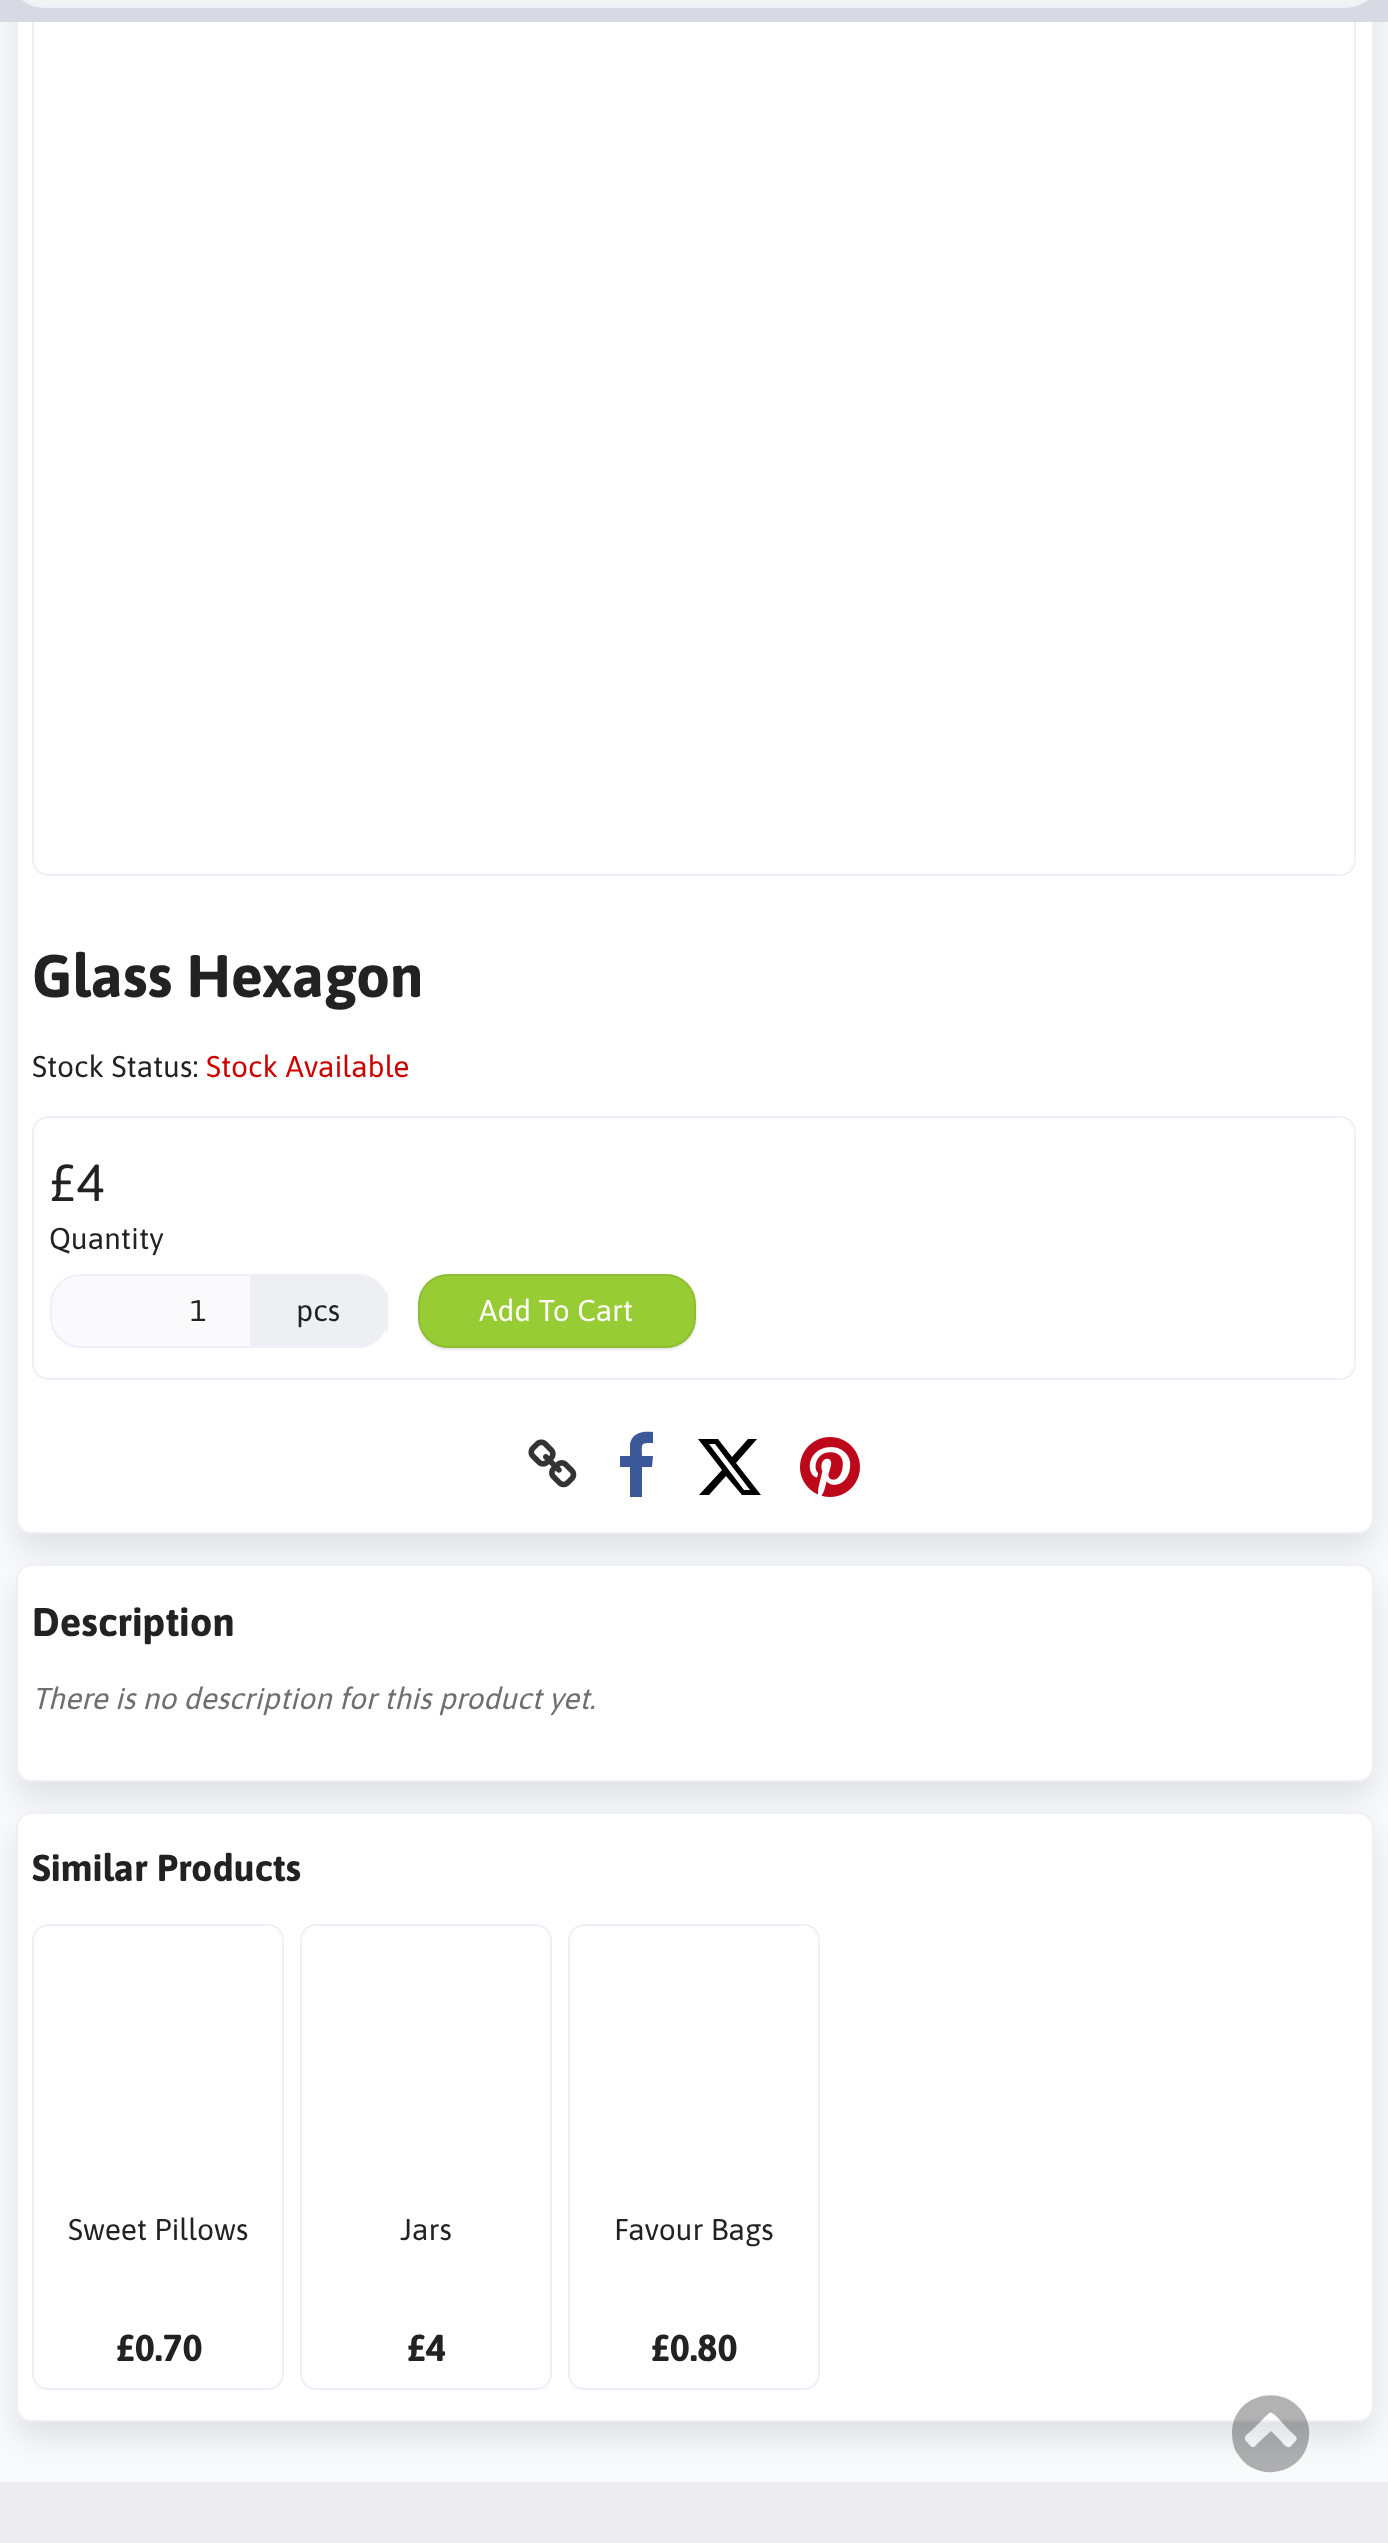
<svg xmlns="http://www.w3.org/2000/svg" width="1388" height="2543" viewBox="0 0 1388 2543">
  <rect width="100%" height="100%" fill="#f9fafc"/>
  <rect x="16" y="-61" width="1358" height="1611" rx="16" fill="#0000001a" filter="blur(15px)"/>
  <rect x="17" y="-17" width="1356" height="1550" rx="15" fill="#fff" stroke="#efeff9" stroke-width="2"/>
  <rect x="33" y="-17" width="1322" height="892" rx="15" fill="none" stroke="#efeff9" stroke-width="2"/>
  <path d="M0 0h1388v22H0z" fill="#d7dae3"/>
  <rect x="17" y="-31" width="1356" height="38" rx="29" fill="#f1f3f5" stroke="#efeff9" stroke-width="2"/>
  <rect x="33" y="1117" width="1322" height="262" rx="15" fill="none" stroke="#efeff9" stroke-width="2"/>
  <rect x="51" y="1275" width="336" height="72" rx="29" fill="#fafafc" stroke="#efeff9" stroke-width="2"/>
  <path d="M250 1276H358C374.5 1276 388 1289.5 388 1306V1316C388 1332.5 374.5 1346 358 1346H250Z" fill="#edeff3"/>
  <path d="M386 1292h2v40H386z" fill="#efeff9"/>
  <path d="M250 1276h2v70H250z" fill="#efeff9"/>
  <rect x="418" y="1276" width="278" height="74" rx="30" fill="#0000001a" filter="blur(1px)"/>
  <rect x="418" y="1274" width="278" height="74" rx="30" fill="#98cc34"/>
  <rect x="419" y="1275" width="276" height="72" rx="29" fill="none" stroke="#00000012" stroke-width="2"/>
  <image x="528" y="1439" width="49" height="49" href="img/1.png"/>
  <path d="M653 1432V1443C640 1443 642 1443 642 1456H653L652 1467H642V1497H630V1467H620V1456H630V1444C632 1432 644 1431 653 1432Z" fill="#3b5998"/>
  <path d="M748 1439H757L736 1463L761 1495H742L726 1476L709 1495H699L722 1470L698 1439H718L732 1457ZM744 1490H750L715 1444H709Z" fill="#000"/>
  <image x="800" y="1437" width="60" height="60" href="img/2.png"/>
  <rect x="16" y="1580" width="1358" height="218" rx="16" fill="#0000001a" filter="blur(15px)"/>
  <rect x="17" y="1565" width="1356" height="216" rx="15" fill="#fff" stroke="#efeff9" stroke-width="2"/>
  <rect x="16" y="1828" width="1358" height="610" rx="16" fill="#0000001a" filter="blur(15px)"/>
  <rect x="17" y="1813" width="1356" height="608" rx="15" fill="#fff" stroke="#efeff9" stroke-width="2"/>
  <rect x="33" y="1925" width="250" height="464" rx="15" fill="none" stroke="#efeff9" stroke-width="2"/>
  <rect x="301" y="1925" width="250" height="464" rx="15" fill="none" stroke="#efeff9" stroke-width="2"/>
  <rect x="569" y="1925" width="250" height="464" rx="15" fill="none" stroke="#efeff9" stroke-width="2"/>
  <path d="M1291 2446C1300 2437 1298 2439 1288 2429L1277 2417C1270 2411 1271 2411 1265 2417L1253 2429C1247 2435 1241 2437 1248 2443C1252 2448 1253 2449 1258 2443L1271 2431L1281 2441C1283 2443 1287 2450 1291 2446ZM1304 2414C1308 2421 1310 2429 1309 2436C1307 2474 1256 2486 1237 2453C1233 2447 1232 2439 1232 2431C1234 2393 1285 2382 1304 2414Z" fill="#0000004d"/>
  <path d="M0 2482h1388v61H0z" fill="#ededf1"/>
  <text x="32" y="997" font-family="Asap" font-size="60" font-weight="bold" fill="#222">Glass Hexagon</text>
  <text x="32" y="1077" font-family="Asap" font-size="30" fill="#222">Stock Status:</text>
  <text x="206" y="1077" font-family="Asap" font-size="30" fill="#c00">Stock Available</text>
  <text x="49" y="1201" font-family="Asap" font-size="52" fill="#222">£4</text>
  <g font-family="Asap" font-size="30" fill="#222">
    <text x="49" y="1249">Quantity</text>
    <text x="190" y="1321">1</text>
    <text x="296" y="1321">pcs</text>
  </g>
  <text x="479" y="1321" font-family="Asap" font-size="30" fill="#fff">Add To Cart</text>
  <text x="32" y="1636" font-family="Asap" font-size="40" font-weight="bold" fill="#222">Description</text>
  <text x="32" y="1709" font-family="Asap" font-size="30" font-style="italic" fill="#6f6f6f">There is no description for this product yet.</text>
  <text x="32" y="1881" font-family="Asap" font-size="37.5" font-weight="bold" fill="#222">Similar Products</text>
  <text x="68" y="2240" font-family="Asap" font-size="30" fill="#222">Sweet Pillows</text>
  <text x="115" y="2361" font-family="Asap" font-size="37.5" font-weight="bold" fill="#222">£0.70</text>
  <text x="400" y="2240" font-family="Asap" font-size="30" fill="#222">Jars</text>
  <text x="406" y="2361" font-family="Asap" font-size="37.5" font-weight="bold" fill="#222">£4</text>
  <text x="614" y="2240" font-family="Asap" font-size="30" fill="#222">Favour Bags</text>
  <text x="650" y="2361" font-family="Asap" font-size="37.5" font-weight="bold" fill="#222">£0.80</text>
</svg>
